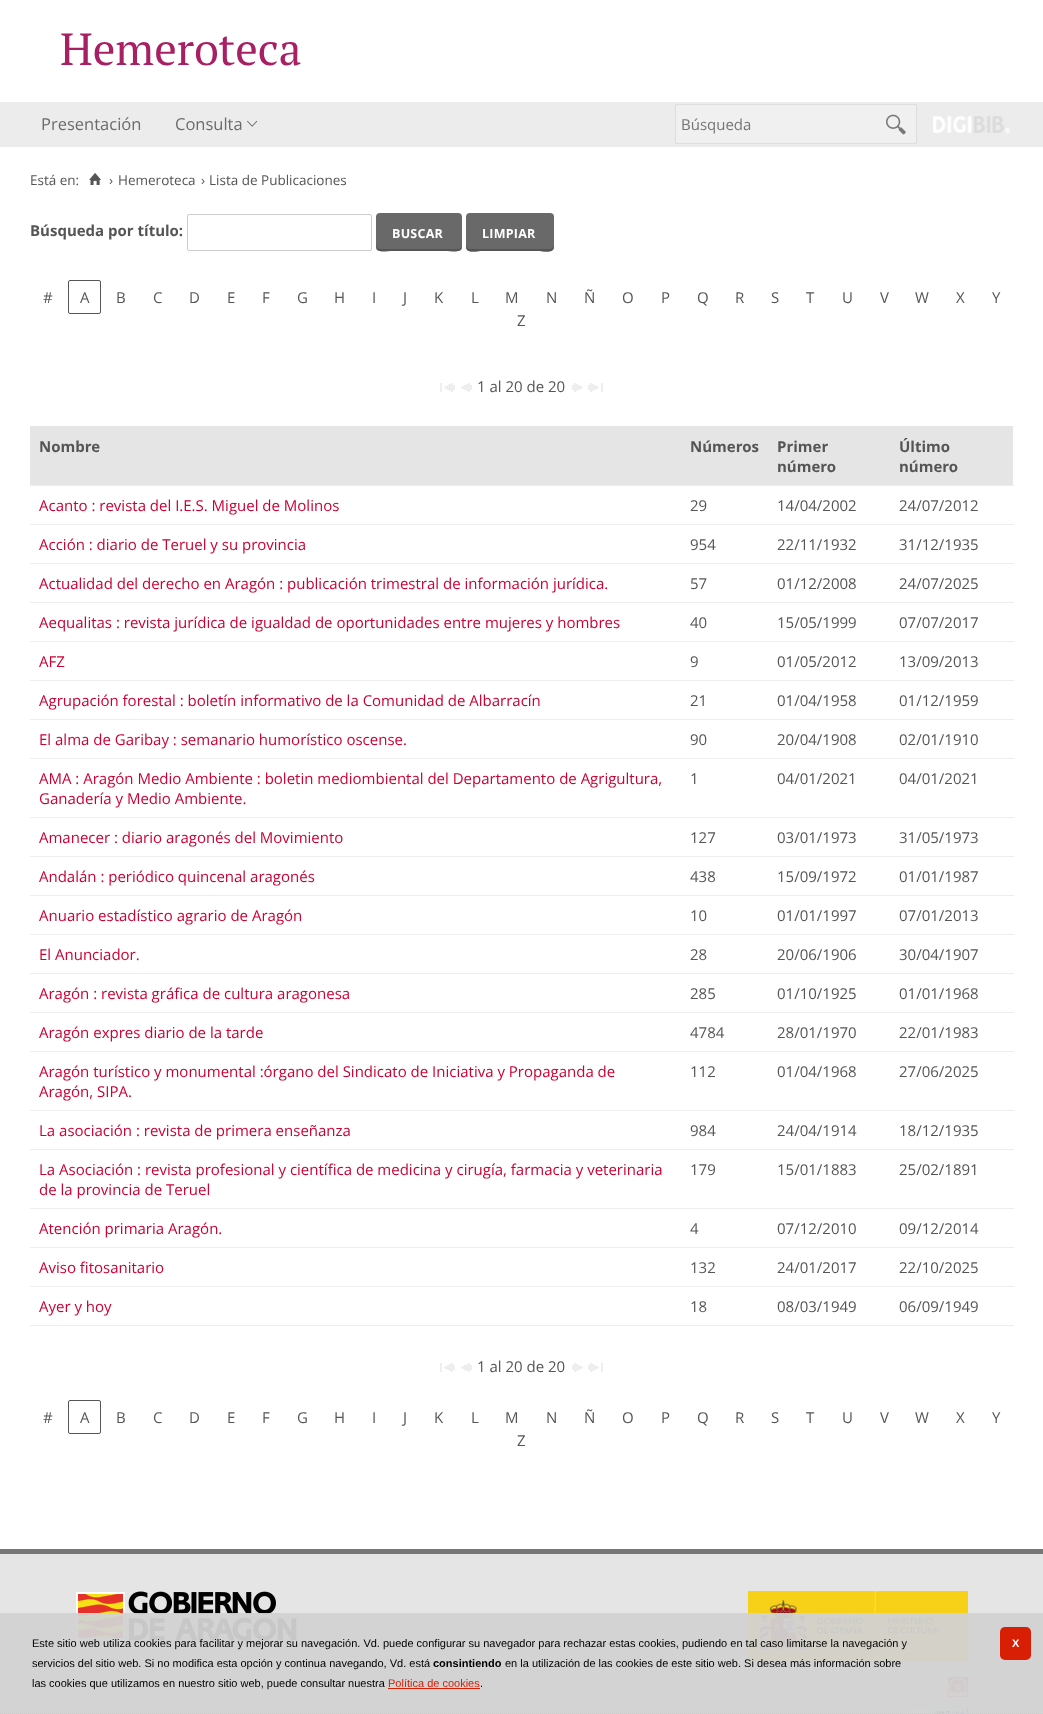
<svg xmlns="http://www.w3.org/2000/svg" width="1043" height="1714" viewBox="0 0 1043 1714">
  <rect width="100%" height="100%" fill="#fff"/>
  <path d="M0 102h1043v45H0z" fill="#ececec"/>
  <image x="247" y="120" width="11" height="7" href="img/1.png"/>
  <rect x="675.5" y="104.5" width="241" height="39" rx="1.5" fill="#f0f0f0" stroke="#ddd"/>
  <image x="886" y="114" width="20" height="21" href="img/2.png"/>
  <image x="933" y="116" width="77" height="17" href="img/3.png"/>
  <image x="89" y="173" width="12" height="12" href="img/4.png"/>
  <rect x="187.5" y="214.5" width="184" height="36" rx="1.5" fill="none" stroke="#ccc"/>
  <rect x="376" y="213" width="86" height="38" rx="4" fill="#696969"/>
  <path d="M376 245C376 254 385 251 393 251H445C453 251 462 254 462 245C462 247 460 249 458 249H380C378 249 376 247 376 245Z" fill="#555"/>
  <rect x="466" y="213" width="88" height="38" rx="4" fill="#696969"/>
  <path d="M466 245C466 255 475 251 483 251H537C545 251 554 255 554 245C554 247 552 249 550 249H470C468 249 466 247 466 245Z" fill="#555"/>
  <rect x="68.5" y="280.5" width="32" height="33" rx="1.5" fill="none" stroke="#555"/>
  <image x="440" y="383" width="15" height="9" href="img/5.png"/>
  <image x="461" y="383" width="11" height="9" href="img/6.png"/>
  <image x="572" y="383" width="11" height="9" href="img/7.png"/>
  <image x="588" y="383" width="15" height="9" href="img/8.png"/>
  <path d="M30 426h983v59H30z" fill="#e5e5e5"/>
  <path d="M30 485h984v1H30z" fill="#eee"/>
  <path d="M30 524h984v1H30z" fill="#eee"/>
  <path d="M30 563h984v1H30z" fill="#eee"/>
  <path d="M30 602h984v1H30z" fill="#eee"/>
  <path d="M30 641h984v1H30z" fill="#eee"/>
  <path d="M30 680h984v1H30z" fill="#eee"/>
  <path d="M30 719h984v1H30z" fill="#eee"/>
  <path d="M30 758h984v1H30z" fill="#eee"/>
  <path d="M30 817h984v1H30z" fill="#eee"/>
  <path d="M30 856h984v1H30z" fill="#eee"/>
  <path d="M30 895h984v1H30z" fill="#eee"/>
  <path d="M30 934h984v1H30z" fill="#eee"/>
  <path d="M30 973h984v1H30z" fill="#eee"/>
  <path d="M30 1012h984v1H30z" fill="#eee"/>
  <path d="M30 1051h984v1H30z" fill="#eee"/>
  <path d="M30 1110h984v1H30z" fill="#eee"/>
  <path d="M30 1149h984v1H30z" fill="#eee"/>
  <path d="M30 1208h984v1H30z" fill="#eee"/>
  <path d="M30 1247h984v1H30z" fill="#eee"/>
  <path d="M30 1286h984v1H30z" fill="#eee"/>
  <path d="M30 1325h984v1H30z" fill="#eee"/>
  <image x="440" y="1363" width="15" height="9" href="img/5.png"/>
  <image x="461" y="1363" width="11" height="9" href="img/6.png"/>
  <image x="572" y="1363" width="11" height="9" href="img/7.png"/>
  <image x="588" y="1363" width="15" height="9" href="img/8.png"/>
  <rect x="68.5" y="1400.5" width="32" height="33" rx="1.5" fill="none" stroke="#555"/>
  <path d="M0 1554h1043v160H0z" fill="#e5e5e5"/>
  <path d="M0 1549h1043v5H0z" fill="#777"/>
  <image x="76" y="1591" width="221" height="50" href="img/9.png"/>
  <image x="748" y="1591" width="220" height="71" href="img/10.png"/>
  <image x="948" y="1677" width="20" height="20" href="img/11.png"/>
  <image x="906" y="1707" width="62" height="7" href="img/12.png"/>
  <path d="M0 1613h1043v101H0z" fill="#d2d2d2f2"/>
  <path d="M0 1713.5H1043" fill="none" stroke="#ccc" stroke-dasharray="1 1"/>
  <path d="M388 1688h92v1H388z" fill="#d81e05"/>
  <rect x="1000" y="1627" width="31" height="33" rx="5" fill="#d81e05"/>
  <text x="60" y="65" font-family="PT Serif" font-size="45" fill="#a91f64">Hemeroteca</text>
  <g font-family="Open Sans" font-size="16.5" fill="#6b6b6b">
    <text x="41" y="130">Presentación</text>
    <text x="175" y="130">Consulta</text>
  </g>
  <text x="681" y="130" font-family="Open Sans" font-size="15" fill="#757575">Búsqueda</text>
  <g font-family="Open Sans" font-size="13.5" fill="#555">
    <text x="30" y="185">Está en:</text>
    <text x="109" y="185">›</text>
    <text x="118" y="185">Hemeroteca</text>
    <text x="201" y="185">›</text>
    <text x="209" y="185">Lista de Publicaciones</text>
  </g>
  <text x="30" y="236" font-family="Open Sans" font-size="15" font-weight="bold" fill="#555">Búsqueda por título:</text>
  <g font-family="Open Sans" font-size="12.5" font-weight="bold" letter-spacing="0.25" fill="#fff">
    <text x="392" y="238">BUSCAR</text>
    <text x="482" y="238">LIMPIAR</text>
  </g>
  <g font-family="Open Sans" font-size="15" fill="#555">
    <text x="43" y="303">#</text>
    <text x="80" y="303">A</text>
    <text x="116" y="303">B</text>
    <text x="153" y="303">C</text>
    <text x="189" y="303">D</text>
    <text x="227" y="303">E</text>
    <text x="262" y="303">F</text>
    <text x="297" y="303">G</text>
    <text x="334" y="303">H</text>
    <text x="372" y="303">I</text>
    <text x="403" y="303">J</text>
    <text x="434" y="303">K</text>
    <text x="471" y="303">L</text>
    <text x="505" y="303">M</text>
    <text x="546" y="303">N</text>
    <text x="584" y="303">Ñ</text>
    <text x="622" y="303">O</text>
    <text x="661" y="303">P</text>
    <text x="697" y="303">Q</text>
    <text x="735" y="303">R</text>
    <text x="771" y="303">S</text>
    <text x="806" y="303">T</text>
    <text x="842" y="303">U</text>
    <text x="880" y="303">V</text>
    <text x="915" y="303">W</text>
    <text x="956" y="303">X</text>
    <text x="992" y="303">Y</text>
    <text x="517" y="326">Z</text>
    <text x="477" y="392">1 al 20 de 20</text>
  </g>
  <g font-family="Open Sans" font-size="15" font-weight="bold" fill="#555">
    <text x="39" y="452">Nombre</text>
    <text x="690" y="452">Números</text>
    <text x="777" y="452">Primer</text>
    <text x="777" y="472">número</text>
    <text x="899" y="452">Último</text>
    <text x="899" y="472">número</text>
  </g>
  <text x="39" y="511" font-family="Open Sans" font-size="15" fill="#c03">Acanto : revista del I.E.S. Miguel de Molinos</text>
  <g font-family="Open Sans" font-size="15" fill="#555">
    <text x="690" y="511">29</text>
    <text x="777" y="511">14/04/2002</text>
    <text x="899" y="511">24/07/2012</text>
  </g>
  <text x="39" y="550" font-family="Open Sans" font-size="15" fill="#c03">Acción : diario de Teruel y su provincia</text>
  <g font-family="Open Sans" font-size="15" fill="#555">
    <text x="690" y="550">954</text>
    <text x="777" y="550">22/11/1932</text>
    <text x="899" y="550">31/12/1935</text>
  </g>
  <text x="39" y="589" font-family="Open Sans" font-size="15" fill="#c03">Actualidad del derecho en Aragón : publicación trimestral de información jurídica.</text>
  <g font-family="Open Sans" font-size="15" fill="#555">
    <text x="690" y="589">57</text>
    <text x="777" y="589">01/12/2008</text>
    <text x="899" y="589">24/07/2025</text>
  </g>
  <text x="39" y="628" font-family="Open Sans" font-size="15" fill="#c03">Aequalitas : revista jurídica de igualdad de oportunidades entre mujeres y hombres</text>
  <g font-family="Open Sans" font-size="15" fill="#555">
    <text x="690" y="628">40</text>
    <text x="777" y="628">15/05/1999</text>
    <text x="899" y="628">07/07/2017</text>
  </g>
  <text x="39" y="667" font-family="Open Sans" font-size="15" fill="#c03">AFZ</text>
  <g font-family="Open Sans" font-size="15" fill="#555">
    <text x="690" y="667">9</text>
    <text x="777" y="667">01/05/2012</text>
    <text x="899" y="667">13/09/2013</text>
  </g>
  <text x="39" y="706" font-family="Open Sans" font-size="15" fill="#c03">Agrupación forestal : boletín informativo de la Comunidad de Albarracín</text>
  <g font-family="Open Sans" font-size="15" fill="#555">
    <text x="690" y="706">21</text>
    <text x="777" y="706">01/04/1958</text>
    <text x="899" y="706">01/12/1959</text>
  </g>
  <text x="39" y="745" font-family="Open Sans" font-size="15" fill="#c03">El alma de Garibay : semanario humorístico oscense.</text>
  <g font-family="Open Sans" font-size="15" fill="#555">
    <text x="690" y="745">90</text>
    <text x="777" y="745">20/04/1908</text>
    <text x="899" y="745">02/01/1910</text>
  </g>
  <g font-family="Open Sans" font-size="15" fill="#c03">
    <text x="39" y="784">AMA : Aragón Medio Ambiente : boletin mediombiental del Departamento de Agrigultura,</text>
    <text x="39" y="804">Ganadería y Medio Ambiente.</text>
  </g>
  <g font-family="Open Sans" font-size="15" fill="#555">
    <text x="690" y="784">1</text>
    <text x="777" y="784">04/01/2021</text>
    <text x="899" y="784">04/01/2021</text>
  </g>
  <text x="39" y="843" font-family="Open Sans" font-size="15" fill="#c03">Amanecer : diario aragonés del Movimiento</text>
  <g font-family="Open Sans" font-size="15" fill="#555">
    <text x="690" y="843">127</text>
    <text x="777" y="843">03/01/1973</text>
    <text x="899" y="843">31/05/1973</text>
  </g>
  <text x="39" y="882" font-family="Open Sans" font-size="15" fill="#c03">Andalán : periódico quincenal aragonés</text>
  <g font-family="Open Sans" font-size="15" fill="#555">
    <text x="690" y="882">438</text>
    <text x="777" y="882">15/09/1972</text>
    <text x="899" y="882">01/01/1987</text>
  </g>
  <text x="39" y="921" font-family="Open Sans" font-size="15" fill="#c03">Anuario estadístico agrario de Aragón</text>
  <g font-family="Open Sans" font-size="15" fill="#555">
    <text x="690" y="921">10</text>
    <text x="777" y="921">01/01/1997</text>
    <text x="899" y="921">07/01/2013</text>
  </g>
  <text x="39" y="960" font-family="Open Sans" font-size="15" fill="#c03">El Anunciador.</text>
  <g font-family="Open Sans" font-size="15" fill="#555">
    <text x="690" y="960">28</text>
    <text x="777" y="960">20/06/1906</text>
    <text x="899" y="960">30/04/1907</text>
  </g>
  <text x="39" y="999" font-family="Open Sans" font-size="15" fill="#c03">Aragón : revista gráfica de cultura aragonesa</text>
  <g font-family="Open Sans" font-size="15" fill="#555">
    <text x="690" y="999">285</text>
    <text x="777" y="999">01/10/1925</text>
    <text x="899" y="999">01/01/1968</text>
  </g>
  <text x="39" y="1038" font-family="Open Sans" font-size="15" fill="#c03">Aragón expres diario de la tarde</text>
  <g font-family="Open Sans" font-size="15" fill="#555">
    <text x="690" y="1038">4784</text>
    <text x="777" y="1038">28/01/1970</text>
    <text x="899" y="1038">22/01/1983</text>
  </g>
  <g font-family="Open Sans" font-size="15" fill="#c03">
    <text x="39" y="1077">Aragón turístico y monumental :órgano del Sindicato de Iniciativa y Propaganda de</text>
    <text x="39" y="1097">Aragón, SIPA.</text>
  </g>
  <g font-family="Open Sans" font-size="15" fill="#555">
    <text x="690" y="1077">112</text>
    <text x="777" y="1077">01/04/1968</text>
    <text x="899" y="1077">27/06/2025</text>
  </g>
  <text x="39" y="1136" font-family="Open Sans" font-size="15" fill="#c03">La asociación : revista de primera enseñanza</text>
  <g font-family="Open Sans" font-size="15" fill="#555">
    <text x="690" y="1136">984</text>
    <text x="777" y="1136">24/04/1914</text>
    <text x="899" y="1136">18/12/1935</text>
  </g>
  <g font-family="Open Sans" font-size="15" fill="#c03">
    <text x="39" y="1175">La Asociación : revista profesional y científica de medicina y cirugía, farmacia y veterinaria</text>
    <text x="39" y="1195">de la provincia de Teruel</text>
  </g>
  <g font-family="Open Sans" font-size="15" fill="#555">
    <text x="690" y="1175">179</text>
    <text x="777" y="1175">15/01/1883</text>
    <text x="899" y="1175">25/02/1891</text>
  </g>
  <text x="39" y="1234" font-family="Open Sans" font-size="15" fill="#c03">Atención primaria Aragón.</text>
  <g font-family="Open Sans" font-size="15" fill="#555">
    <text x="690" y="1234">4</text>
    <text x="777" y="1234">07/12/2010</text>
    <text x="899" y="1234">09/12/2014</text>
  </g>
  <text x="39" y="1273" font-family="Open Sans" font-size="15" fill="#c03">Aviso fitosanitario</text>
  <g font-family="Open Sans" font-size="15" fill="#555">
    <text x="690" y="1273">132</text>
    <text x="777" y="1273">24/01/2017</text>
    <text x="899" y="1273">22/10/2025</text>
  </g>
  <text x="39" y="1312" font-family="Open Sans" font-size="15" fill="#c03">Ayer y hoy</text>
  <g font-family="Open Sans" font-size="15" fill="#555">
    <text x="690" y="1312">18</text>
    <text x="777" y="1312">08/03/1949</text>
    <text x="899" y="1312">06/09/1949</text>
    <text x="477" y="1372">1 al 20 de 20</text>
    <text x="43" y="1423">#</text>
    <text x="80" y="1423">A</text>
    <text x="116" y="1423">B</text>
    <text x="153" y="1423">C</text>
    <text x="189" y="1423">D</text>
    <text x="227" y="1423">E</text>
    <text x="262" y="1423">F</text>
    <text x="297" y="1423">G</text>
    <text x="334" y="1423">H</text>
    <text x="372" y="1423">I</text>
    <text x="403" y="1423">J</text>
    <text x="434" y="1423">K</text>
    <text x="471" y="1423">L</text>
    <text x="505" y="1423">M</text>
    <text x="546" y="1423">N</text>
    <text x="584" y="1423">Ñ</text>
    <text x="622" y="1423">O</text>
    <text x="661" y="1423">P</text>
    <text x="697" y="1423">Q</text>
    <text x="735" y="1423">R</text>
    <text x="771" y="1423">S</text>
    <text x="806" y="1423">T</text>
    <text x="842" y="1423">U</text>
    <text x="880" y="1423">V</text>
    <text x="915" y="1423">W</text>
    <text x="956" y="1423">X</text>
    <text x="992" y="1423">Y</text>
    <text x="517" y="1446">Z</text>
  </g>
  <g font-family="Liberation Sans" font-size="11" fill="#000">
    <text x="32" y="1647">Este sitio web utiliza cookies para facilitar y mejorar su navegación. Vd. puede configurar su navegador para rechazar estas cookies, pudiendo en tal caso limitarse la navegación y</text>
    <text x="32" y="1667">servicios del sitio web. Si no modifica esta opción y continua navegando, Vd. está</text>
  </g>
  <text x="433" y="1667" font-family="Liberation Sans" font-size="11" font-weight="bold" fill="#000">consintiendo</text>
  <g font-family="Liberation Sans" font-size="11" fill="#000">
    <text x="505" y="1667">en la utilización de las cookies de este sitio web. Si desea más información sobre</text>
    <text x="32" y="1687">las cookies que utilizamos en nuestro sitio web, puede consultar nuestra</text>
  </g>
  <text x="388" y="1687" font-family="Liberation Sans" font-size="11" fill="#d81e05">Política de cookies</text>
  <text x="480" y="1687" font-family="Liberation Sans" font-size="11" fill="#000">.</text>
  <text x="1012" y="1647" font-family="Liberation Sans" font-size="11" font-weight="bold" letter-spacing="-1" fill="#fff">X</text>
</svg>
